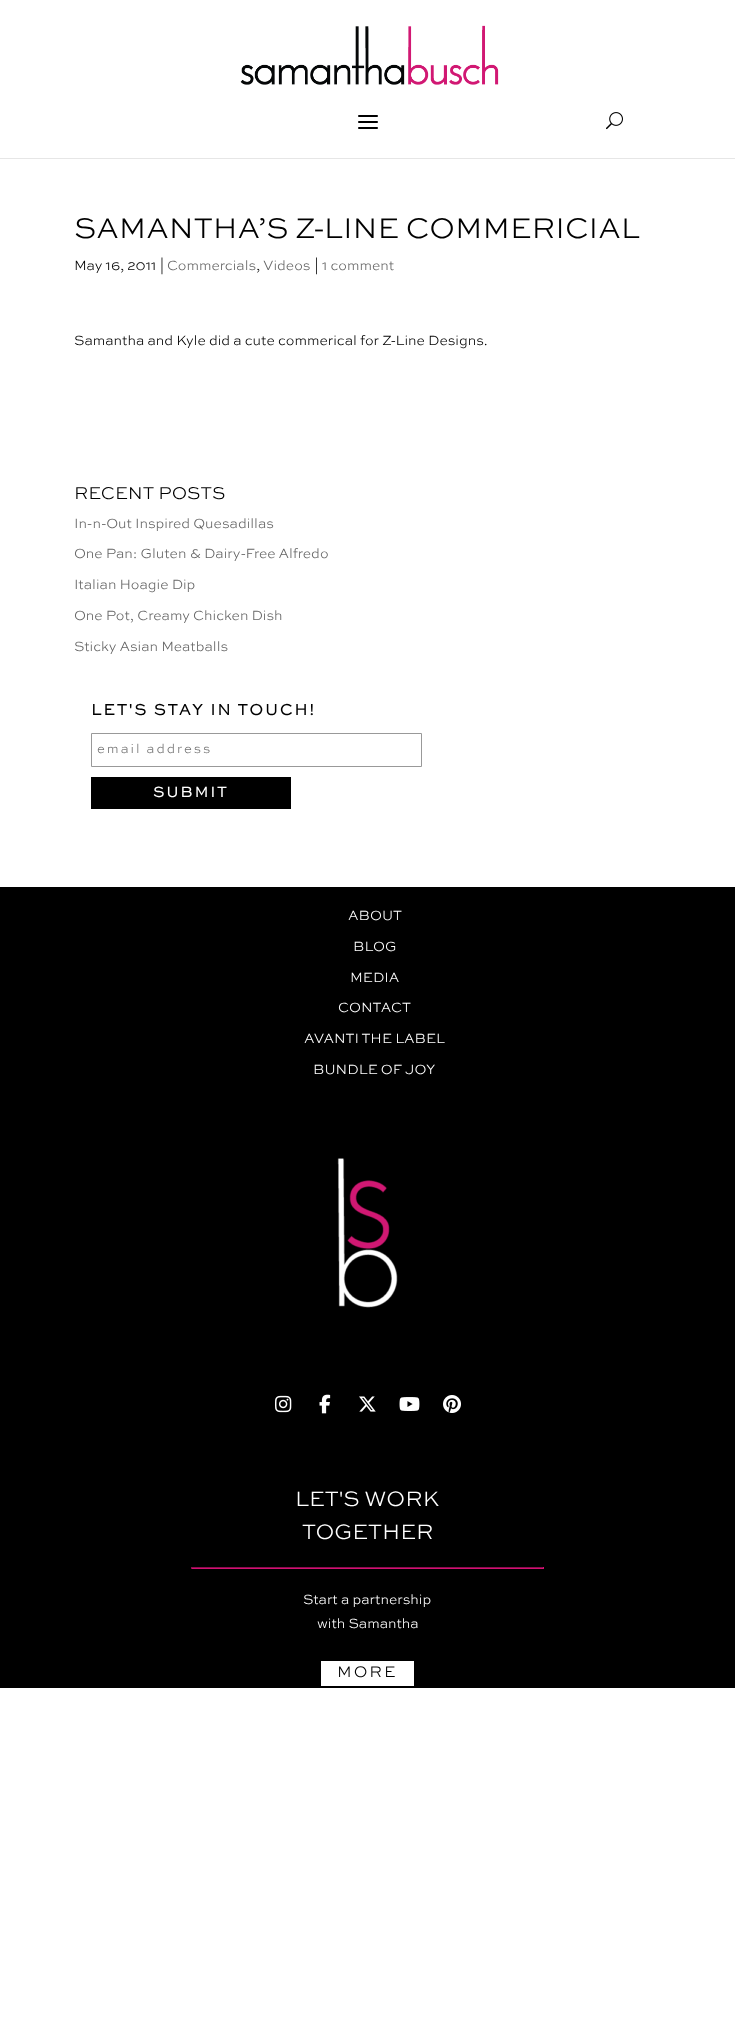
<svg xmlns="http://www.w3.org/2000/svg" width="735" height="2033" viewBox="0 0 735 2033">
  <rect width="100%" height="100%" fill="#fff"/>
  <path d="M0 158h735v1H0z" fill="#e6e6e6"/>
  <image x="240" y="25" width="259" height="60" href="img/1.png"/>
  <image x="358" y="115" width="20" height="14" href="img/2.png"/>
  <image x="606" y="112" width="17" height="18" href="img/3.png"/>
  <path d="M91.5 733.5h330v33H91.5z" fill="none" stroke="#999"/>
  <path d="M91 777h200v32H91z" fill="#000"/>
  <path d="M0 887h735v801H0z" fill="#000"/>
  <image x="337" y="1158" width="61" height="150" href="img/4.png"/>
  <image x="275" y="1395" width="17" height="18" href="img/5.png"/>
  <image x="319" y="1394" width="12" height="20" href="img/6.png"/>
  <image x="359" y="1396" width="17" height="16" href="img/7.png"/>
  <image x="399" y="1397" width="21" height="14" href="img/8.png"/>
  <image x="443" y="1395" width="18" height="18" href="img/9.png"/>
  <path d="M191 1567h353v1H191z" fill="#8b0b4c"/>
  <path d="M543 1567h1v2H543z" fill="#d11172"/>
  <path d="M191 1568h353v1H191z" fill="#d11172"/>
  <path d="M191 1567h1v2H191z" fill="#8b0b4c"/>
  <path d="M321 1661h93v25H321z" fill="#fff"/>
  <text x="74" y="238" font-family="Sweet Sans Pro" font-size="30" font-weight="300" fill="#000">SAMANTHA’S Z-LINE COMMERICIAL</text>
  <text x="74" y="270" font-family="Sweet Sans Pro" font-size="14" font-weight="300" fill="#000">May 16, 2011 |</text>
  <text x="167" y="270" font-family="Sweet Sans Pro" font-size="14" font-weight="300" fill="#666">Commercials</text>
  <text x="256" y="270" font-family="Sweet Sans Pro" font-size="14" font-weight="300" fill="#000">,</text>
  <text x="263" y="270" font-family="Sweet Sans Pro" font-size="14" font-weight="300" fill="#666">Videos</text>
  <text x="314" y="270" font-family="Sweet Sans Pro" font-size="14" font-weight="300" fill="#000">|</text>
  <text x="322" y="270" font-family="Sweet Sans Pro" font-size="14" font-weight="300" fill="#666">1 comment</text>
  <text x="74" y="345" font-family="Sweet Sans Pro" font-size="14" font-weight="300" fill="#000">Samantha and Kyle did a cute commerical for Z-Line Designs.</text>
  <text x="74" y="499" font-family="Sweet Sans Pro" font-size="18" font-weight="300" fill="#000">RECENT POSTS</text>
  <g font-family="Sweet Sans Pro" font-size="14" font-weight="300" fill="#666">
    <text x="74" y="528">In-n-Out Inspired Quesadillas</text>
    <text x="74" y="558">One Pan: Gluten &amp; Dairy-Free Alfredo</text>
    <text x="74" y="589">Italian Hoagie Dip</text>
    <text x="74" y="620">One Pot, Creamy Chicken Dish</text>
    <text x="74" y="651">Sticky Asian Meatballs</text>
  </g>
  <text x="91" y="715" font-family="Sweet Sans Pro" font-size="16" font-weight="bold" letter-spacing="2" fill="#000">LET'S STAY IN TOUCH!</text>
  <text x="97" y="753" font-family="Sweet Sans Pro" font-size="13.25" font-weight="300" letter-spacing="2" fill="#757575">email address</text>
  <text x="153" y="797" font-family="Sweet Sans Pro" font-size="15" font-weight="bold" letter-spacing="2" fill="#fff">SUBMIT</text>
  <g font-family="Sweet Sans Pro" font-size="14" font-weight="300" fill="#fff">
    <text x="348" y="920">ABOUT</text>
    <text x="353" y="951">BLOG</text>
    <text x="350" y="982">MEDIA</text>
    <text x="338" y="1012">CONTACT</text>
    <text x="304" y="1043">AVANTI THE LABEL</text>
    <text x="313" y="1074">BUNDLE OF JOY</text>
  </g>
  <g font-family="Sweet Sans Pro" font-size="22" font-weight="300" fill="#fff">
    <text x="295" y="1506">LET'S WORK</text>
    <text x="302" y="1539">TOGETHER</text>
  </g>
  <g font-family="Sweet Sans Pro" font-size="14" font-weight="300" fill="#fff">
    <text x="303" y="1604">Start a partnership</text>
    <text x="317" y="1628">with Samantha</text>
  </g>
  <text x="337" y="1677" font-family="Sweet Sans Pro" font-size="16" font-weight="300" letter-spacing="2" fill="#000">MORE</text>
</svg>
